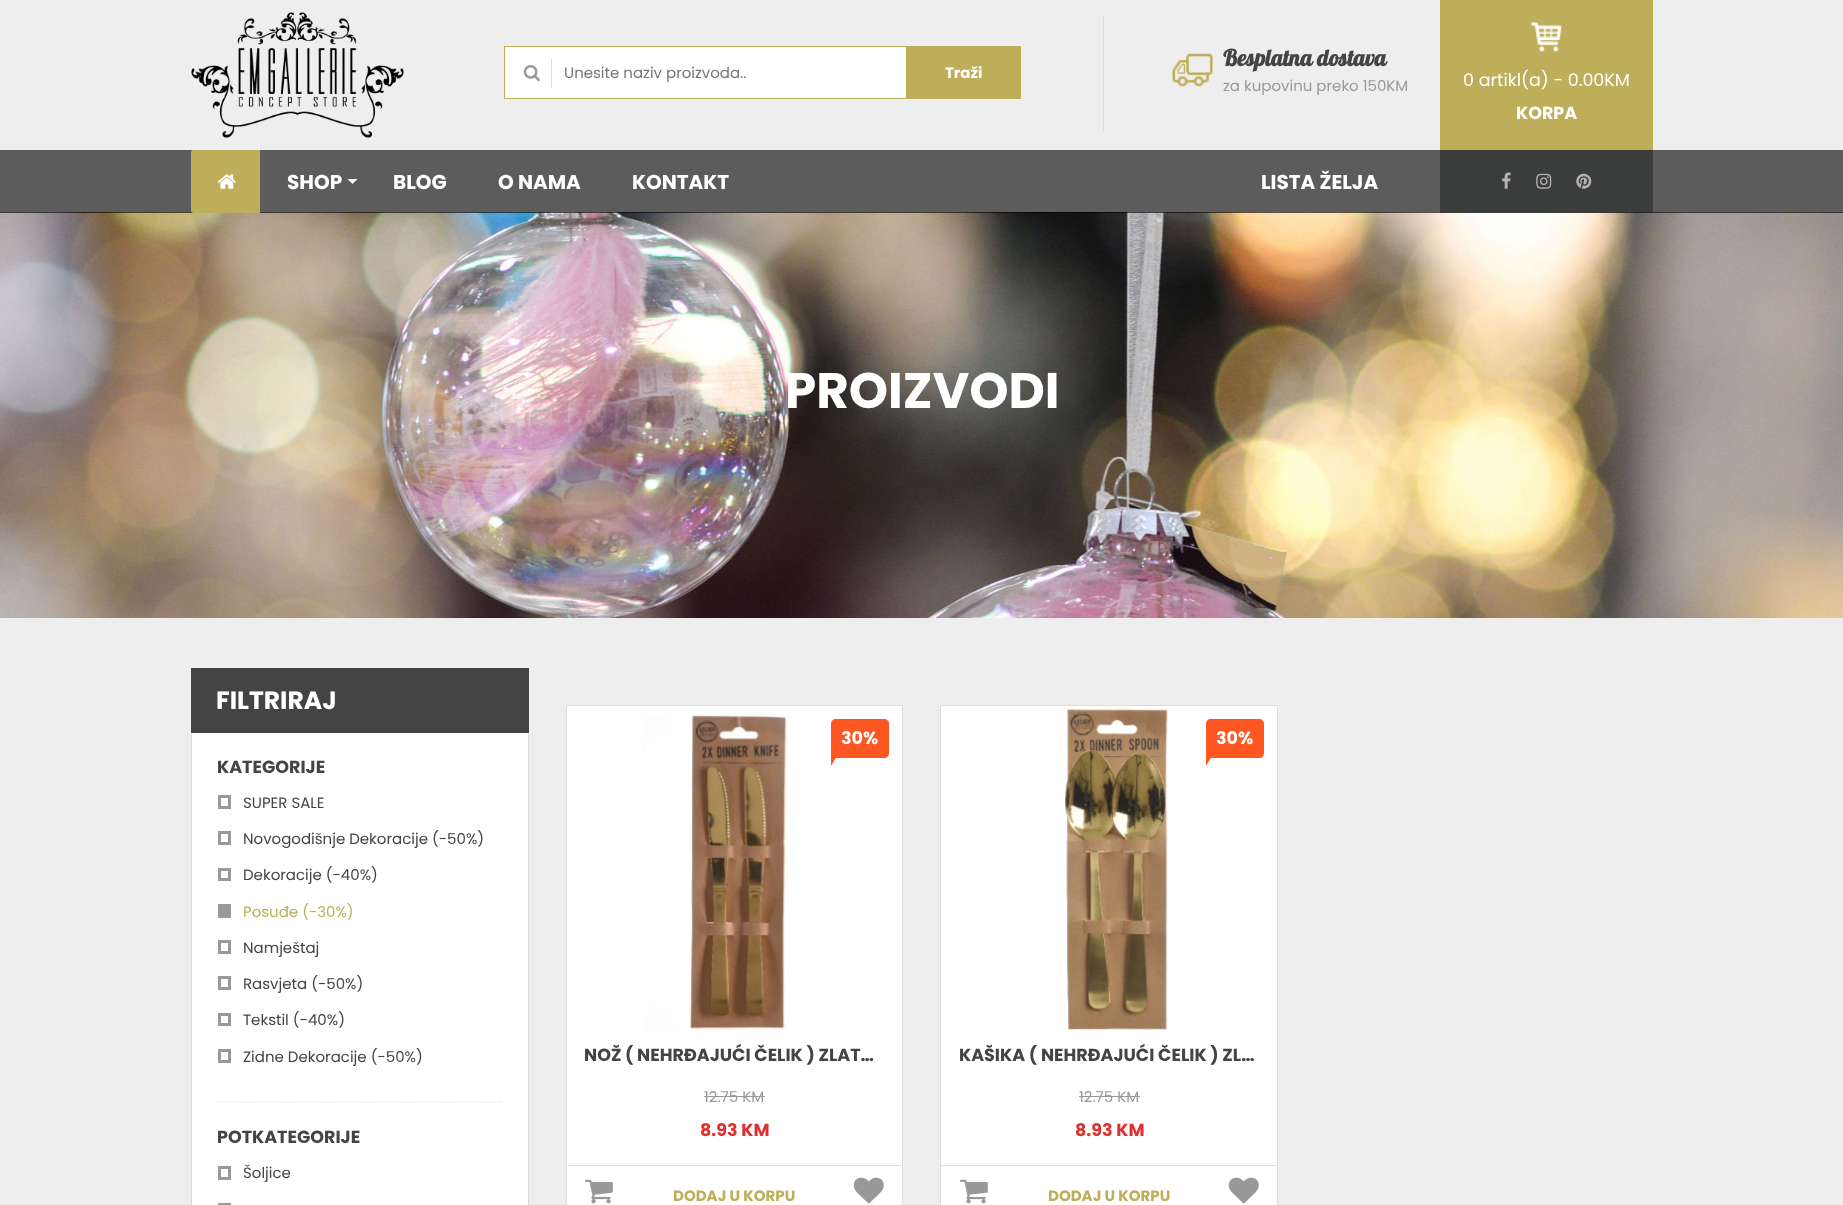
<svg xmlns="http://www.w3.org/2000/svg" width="1843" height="1205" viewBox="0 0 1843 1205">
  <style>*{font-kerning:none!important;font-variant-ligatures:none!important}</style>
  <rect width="100%" height="100%" fill="#fff"/>
  <path d="M0 0h1843v150H0z" fill="#eee"/>
  <image x="191" y="12" width="213" height="126" href="img/1.png"/>
  <path d="M504 46h402v1H504z" fill="#beae59"/>
  <path d="M504 98h402v1H504z" fill="#beae59"/>
  <path d="M504 46h1v53H504z" fill="#beae59"/>
  <path d="M505 47h401v51H505z" fill="#fff"/>
  <image x="523" y="65" width="17" height="17" href="img/2.png"/>
  <path d="M551 58h1v30H551z" fill="#ddd"/>
  <path d="M906 46h115v53H906z" fill="#beae59"/>
  <path d="M1103 15h1v116H1103z" fill="#ddd"/>
  <image x="1172" y="53" width="41" height="34" href="img/3.png"/>
  <path d="M1440 0h213v150H1440z" fill="#beae59"/>
  <image x="1531" y="22" width="31" height="30" href="img/4.png"/>
  <image x="0" y="212" width="1843" height="406" href="img/9.png"/>
  <path d="M0 150h1843v63H0z" fill="#000000a3"/>
  <path d="M193.5 150H260V213H193.5C192 213 191 212 191 210.5V152.5C191 151 192 150 193.5 150Z" fill="#beae59"/>
  <image x="217" y="174" width="19" height="15" href="img/5.png"/>
  <path d="M347.5 179H357.5L352.5 184Z" fill="#fff"/>
  <path d="M1440 150h213v63H1440z" fill="#292a2ba3"/>
  <image x="1502" y="172" width="9" height="17" href="img/6.png"/>
  <image x="1536" y="173" width="16" height="16" href="img/7.png"/>
  <image x="1576" y="173" width="16" height="16" href="img/8.png"/>
  <path d="M0 618h1843v587H0z" fill="#eee"/>
  <path d="M191 668h338v65H191z" fill="#444"/>
  <path d="M192 733h336v472H192z" fill="#fff"/>
  <path d="M528 733h1v472H528z" fill="#ddd"/>
  <path d="M191 733h1v472H191z" fill="#ddd"/>
  <path d="M217.5 1102H502.5" fill="none" stroke="#ddd" stroke-width="1.2" stroke-dasharray="1.25 1.25"/>
  <path d="M219.5 796.5h10v11H219.5z" fill="none" stroke="#999" stroke-width="3"/>
  <path d="M219.5 832.5h10v11H219.5z" fill="none" stroke="#999" stroke-width="3"/>
  <path d="M219.5 869.5h10v10H219.5z" fill="none" stroke="#999" stroke-width="3"/>
  <path d="M219.5 905.5h10v11H219.5z" fill="none" stroke="#999" stroke-width="3"/>
  <path d="M221 907h7v8H221z" fill="#999"/>
  <path d="M219.5 941.5h10v11H219.5z" fill="none" stroke="#999" stroke-width="3"/>
  <path d="M219.5 977.5h10v11H219.5z" fill="none" stroke="#999" stroke-width="3"/>
  <path d="M219.5 1014.5h10v10H219.5z" fill="none" stroke="#999" stroke-width="3"/>
  <path d="M219.5 1050.5h10v11H219.5z" fill="none" stroke="#999" stroke-width="3"/>
  <path d="M219.5 1167.5h10v11H219.5z" fill="none" stroke="#999" stroke-width="3"/>
  <path d="M219.5 1204.5h10v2H219.5z" fill="none" stroke="#999" stroke-width="3"/>
  <path d="M566.5 705.5h336v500H566.5z" fill="#fff" stroke="#ddd"/>
  <image x="642" y="714" width="147" height="318" href="img/10.png"/>
  <path d="M836 719H884C887 719 889 721 889 724V753C889 756 887 758 884 758H831V724C831 721 833 719 836 719Z" fill="#ff5722"/>
  <path d="M831 766V756H837Z" fill="#ff5722"/>
  <path d="M704 1096h61v1H704z" fill="#999"/>
  <path d="M568 1165h333v1H568z" fill="#ddd"/>
  <image x="585" y="1179" width="28" height="25" href="img/11.png"/>
  <image x="853" y="1177" width="31" height="27" href="img/12.png"/>
  <path d="M940.5 705.5h337v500H940.5z" fill="#fff" stroke="#ddd"/>
  <image x="1065" y="709" width="105" height="321" href="img/13.png"/>
  <path d="M1211 719H1259C1262 719 1264 721 1264 724V753C1264 756 1262 758 1259 758H1206V724C1206 721 1208 719 1211 719Z" fill="#ff5722"/>
  <path d="M1206 766V756H1212Z" fill="#ff5722"/>
  <path d="M1079 1096h61v1H1079z" fill="#999"/>
  <path d="M941 1165h335v1H941z" fill="#ddd"/>
  <image x="960" y="1179" width="28" height="25" href="img/11.png"/>
  <image x="1228" y="1177" width="31" height="27" href="img/12.png"/>
  <text x="564" y="78" font-family="Poppins" font-size="15" fill="#757575">Unesite naziv proizvoda..</text>
  <text x="945" y="78" font-family="Poppins" font-size="15" font-weight="bold" fill="#fff">Traži</text>
  <text x="1223" y="66" font-family="Lobster" font-size="22.5" font-weight="bold" fill="#444">Besplatna dostava</text>
  <text x="1223" y="91" font-family="Poppins" font-size="15" fill="#999">za kupovinu preko 150KM</text>
  <text x="1463" y="86" font-family="Poppins" font-size="17.5" fill="#fff">0 artikl(a) - 0.00KM</text>
  <text x="1516" y="119" font-family="Poppins" font-size="17.5" font-weight="bold" fill="#fff">KORPA</text>
  <g font-family="Poppins" font-size="20" font-weight="bold" fill="#fff">
    <text x="287" y="189">SHOP</text>
    <text x="393" y="189">BLOG</text>
    <text x="498" y="189">O NAMA</text>
    <text x="632" y="189">KONTAKT</text>
    <text x="1261" y="189">LISTA ŽELJA</text>
  </g>
  <text x="785" y="408" font-family="Poppins" font-size="50" font-weight="bold" fill="#fff">PROIZVODI</text>
  <text x="216" y="709" font-family="Poppins" font-size="25" font-weight="bold" fill="#fff">FILTRIRAJ</text>
  <text x="217" y="773" font-family="Poppins" font-size="17.5" font-weight="bold" fill="#444">KATEGORIJE</text>
  <g font-family="Poppins" font-size="15" fill="#444">
    <text x="243" y="808">SUPER SALE</text>
    <text x="243" y="844">Novogodišnje Dekoracije (-50%)</text>
    <text x="243" y="880">Dekoracije (-40%)</text>
  </g>
  <text x="243" y="917" font-family="Poppins" font-size="15" fill="#beae59">Posuđe (-30%)</text>
  <g font-family="Poppins" font-size="15" fill="#444">
    <text x="243" y="953">Namještaj</text>
    <text x="243" y="989">Rasvjeta (-50%)</text>
    <text x="243" y="1025">Tekstil (-40%)</text>
    <text x="243" y="1062">Zidne Dekoracije (-50%)</text>
  </g>
  <text x="217" y="1143" font-family="Poppins" font-size="17.5" font-weight="bold" fill="#444">POTKATEGORIJE</text>
  <text x="243" y="1178" font-family="Poppins" font-size="15" fill="#444">Šoljice</text>
  <text x="841" y="744" font-family="Poppins" font-size="17.5" font-weight="bold" fill="#fff">30%</text>
  <text x="584" y="1061" font-family="Poppins" font-size="17.5" font-weight="bold" fill="#444">NOŽ ( NEHRĐAJUĆI ČELIK ) ZLAT…</text>
  <text x="704" y="1102" font-family="Poppins" font-size="15" fill="#999">12.75 KM</text>
  <text x="700" y="1136" font-family="Poppins" font-size="17.5" font-weight="bold" fill="#e12f2f">8.93 KM</text>
  <text x="673" y="1201" font-family="Poppins" font-size="15" font-weight="bold" fill="#beae59">DODAJ U KORPU</text>
  <text x="1216" y="744" font-family="Poppins" font-size="17.5" font-weight="bold" fill="#fff">30%</text>
  <text x="959" y="1061" font-family="Poppins" font-size="17.5" font-weight="bold" fill="#444">KAŠIKA ( NEHRĐAJUĆI ČELIK ) ZL…</text>
  <text x="1079" y="1102" font-family="Poppins" font-size="15" fill="#999">12.75 KM</text>
  <text x="1075" y="1136" font-family="Poppins" font-size="17.5" font-weight="bold" fill="#e12f2f">8.93 KM</text>
  <text x="1048" y="1201" font-family="Poppins" font-size="15" font-weight="bold" fill="#beae59">DODAJ U KORPU</text>
</svg>
